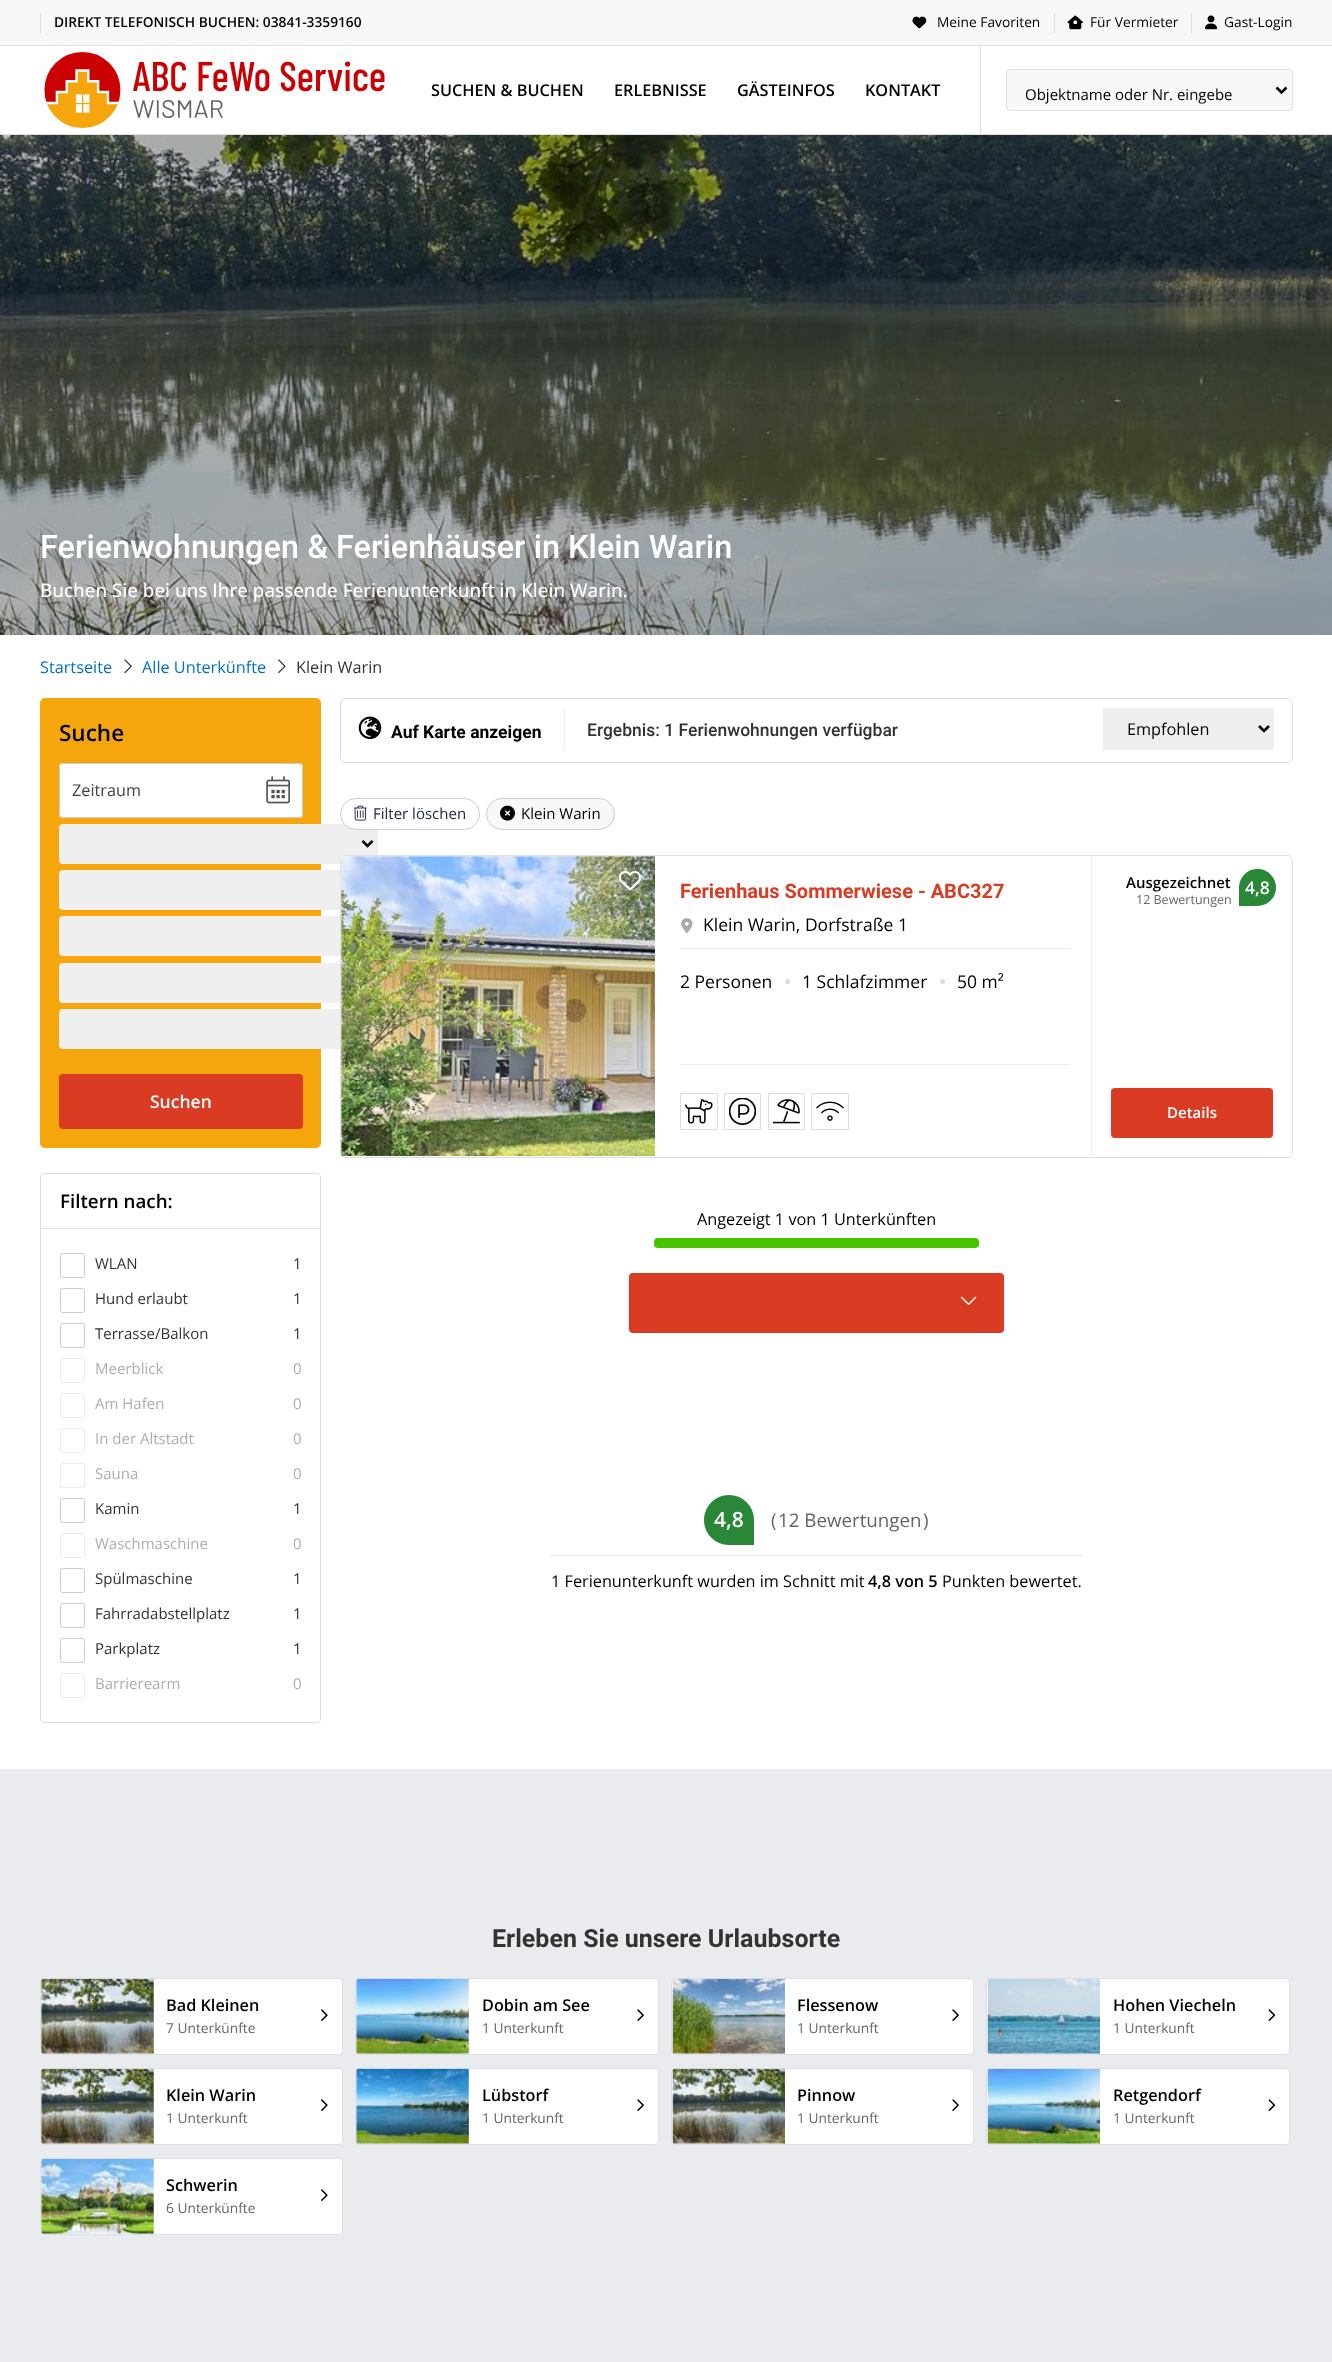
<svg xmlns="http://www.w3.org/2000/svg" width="1332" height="2362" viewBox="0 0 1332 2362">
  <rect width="100%" height="100%" fill="#fff"/>
  <path d="M0 0h1332v45H0z" fill="#f8f8f8"/>
  <path d="M0 45h1332v1H0z" fill="#dddfe2"/>
  <path d="M40 13h1v20H40z" fill="#dddfe2"/>
  <path d="M1054 13h1v20H1054z" fill="#dddfe2"/>
  <image x="912" y="16" width="15" height="13" href="img/1.png"/>
  <path d="M1191 13h1v20H1191z" fill="#dddfe2"/>
  <image x="1067" y="15" width="16" height="15" href="img/2.png"/>
  <image x="1205" y="15" width="12" height="15" href="img/3.png"/>
  <path d="M0 134h1332v1H0z" fill="#dddfe2"/>
  <image x="44" y="52" width="341" height="76" href="img/4.png"/>
  <path d="M980 46h1v88H980z" fill="#dddfe2"/>
  <rect x="1006.5" y="69.5" width="286" height="41" rx="3.5" fill="#f8f8f8" stroke="#dddfe2"/>
  <path d="M1276.5 87.5L1281.5 92.5L1286.5 87.5" fill="none" stroke="#000" stroke-width="2.5"/>
  <image x="0" y="135" width="1332" height="500" href="img/5.png"/>
  <image x="124" y="659" width="8" height="14" href="img/6.png"/>
  <image x="278" y="659" width="8" height="15" href="img/7.png"/>
  <rect x="40" y="698" width="281" height="450" rx="5" fill="#f4a60c"/>
  <rect x="59" y="763" width="244" height="55" rx="4" fill="#fff"/>
  <image x="266" y="776" width="24" height="28" href="img/8.png"/>
  <rect x="59.5" y="763.5" width="243" height="54" rx="3.5" fill="none" stroke="#ccc"/>
  <rect x="59" y="824" width="319" height="40" rx="4" fill="#efefef"/>
  <path d="M362.5 841L367.5 846L372.5 841" fill="none" stroke="#000" stroke-width="2.5"/>
  <rect x="59" y="870" width="319" height="40" rx="4" fill="#efefef"/>
  <rect x="59" y="916" width="319" height="40" rx="4" fill="#efefef"/>
  <rect x="59" y="963" width="319" height="40" rx="4" fill="#efefef"/>
  <rect x="59" y="1009" width="319" height="40" rx="4" fill="#efefef"/>
  <rect x="59" y="1074" width="244" height="55" rx="4" fill="#d93c23"/>
  <rect x="40.5" y="1173.5" width="280" height="549" rx="3.5" fill="none" stroke="#dddfe2"/>
  <path d="M41 1228h279v1H41z" fill="#dddfe2"/>
  <rect x="60.5" y="1253.5" width="24" height="24" rx="2" fill="none" stroke="#ccc"/>
  <rect x="60.5" y="1288.5" width="24" height="24" rx="2" fill="none" stroke="#ccc"/>
  <rect x="60.5" y="1323.5" width="24" height="24" rx="2" fill="none" stroke="#ccc"/>
  <rect x="60.5" y="1358.5" width="24" height="24" rx="2" fill="none" stroke="#ebebeb"/>
  <rect x="60.5" y="1393.5" width="24" height="24" rx="2" fill="none" stroke="#ebebeb"/>
  <rect x="60.5" y="1428.5" width="24" height="24" rx="2" fill="none" stroke="#ebebeb"/>
  <rect x="60.5" y="1463.5" width="24" height="24" rx="2" fill="none" stroke="#ebebeb"/>
  <rect x="60.5" y="1498.5" width="24" height="24" rx="2" fill="none" stroke="#ccc"/>
  <rect x="60.5" y="1533.5" width="24" height="24" rx="2" fill="none" stroke="#ebebeb"/>
  <rect x="60.5" y="1568.5" width="24" height="24" rx="2" fill="none" stroke="#ccc"/>
  <rect x="60.5" y="1603.5" width="24" height="24" rx="2" fill="none" stroke="#ccc"/>
  <rect x="60.5" y="1638.5" width="24" height="24" rx="2" fill="none" stroke="#ccc"/>
  <rect x="60.5" y="1673.5" width="24" height="24" rx="2" fill="none" stroke="#ebebeb"/>
  <rect x="340.5" y="698.5" width="952" height="64" rx="4.5" fill="none" stroke="#dddfe2"/>
  <path d="M564 708h1v42H564z" fill="#eee"/>
  <image x="358" y="716" width="24" height="24" href="img/9.png"/>
  <path d="M1104 708h170v42H1104z" fill="#efefef"/>
  <path d="M1103 708h1v42H1103z" fill="#eee"/>
  <path d="M1259 726L1264 731L1269 726" fill="none" stroke="#000" stroke-width="2.5"/>
  <rect x="340.5" y="798.5" width="139" height="31" rx="15.5" fill="#fff" stroke="#ccc"/>
  <image x="353" y="805" width="14" height="16" href="img/10.png"/>
  <rect x="486.5" y="798.5" width="128" height="31" rx="15.5" fill="#f8f8f8" stroke="#ccc"/>
  <image x="500" y="805" width="15" height="16" href="img/11.png"/>
  <rect x="340.5" y="855.5" width="952" height="302" rx="4.5" fill="#fff" stroke="#dddfe2"/>
  <path d="M341 856h314v300H341z" fill="#f0f0f0"/>
  <image x="341" y="856" width="314" height="301" href="img/12.png"/>
  <image x="618" y="870" width="24" height="21" href="img/13.png"/>
  <path d="M680 1064h390v1H680z" fill="#eee"/>
  <path d="M1257.5 870.5C1267 870.5 1274.5 878 1274.5 887.5C1274.5 897 1267 904.5 1257.5 904.5H1240.5V887.5C1240.5 878 1248 870.5 1257.5 870.5Z" fill="#298737" stroke="#298737" stroke-width="3"/>
  <path d="M680.5 1093.5h37v36H680.5z" fill="none" stroke="#dddfe2"/>
  <image x="685" y="1099" width="28" height="25" href="img/14.png"/>
  <path d="M724.5 1093.5h36v36H724.5z" fill="none" stroke="#dddfe2"/>
  <image x="729" y="1098" width="27" height="27" href="img/15.png"/>
  <path d="M768.5 1093.5h36v36H768.5z" fill="none" stroke="#dddfe2"/>
  <image x="773" y="1099" width="27" height="25" href="img/16.png"/>
  <path d="M811.5 1093.5h37v36H811.5z" fill="none" stroke="#dddfe2"/>
  <image x="816" y="1101" width="28" height="20" href="img/17.png"/>
  <path d="M680 948h390v1H680z" fill="#eee"/>
  <image x="681" y="918" width="12" height="15" href="img/18.png"/>
  <circle cx="787.5" cy="981.5" r="2.5" fill="#ddd"/>
  <circle cx="942.5" cy="981.5" r="2.5" fill="#ddd"/>
  <path d="M1091 856h1v300H1091z" fill="#eee"/>
  <rect x="1111" y="1088" width="162" height="50" rx="4" fill="#d93c23"/>
  <rect x="654" y="1238" width="325" height="10" rx="4" fill="#46c400"/>
  <rect x="629" y="1273" width="375" height="60" rx="4" fill="#d93c23"/>
  <image x="960" y="1296" width="17" height="9" href="img/19.png"/>
  <path d="M729 1496.5C742 1496.5 752.5 1507 752.5 1520V1543.5H729C716 1543.5 705.5 1533 705.5 1520C705.5 1507 716 1496.5 729 1496.5Z" fill="#298737" stroke="#298737" stroke-width="3"/>
  <path d="M550 1555h533v1H550z" fill="#e6e6e6"/>
  <path d="M0 1769h1332v593H0z" fill="#e9ebee"/>
  <rect x="40.5" y="1978.5" width="302" height="76" rx="3.5" fill="#fff" stroke="#dddfe2"/>
  <image x="41" y="1978" width="113" height="76" href="img/20.png"/>
  <image x="321" y="2009" width="7" height="12" href="img/21.png"/>
  <rect x="355.5" y="1978.5" width="303" height="76" rx="3.5" fill="#fff" stroke="#dddfe2"/>
  <image x="356" y="1978" width="113" height="76" href="img/22.png"/>
  <image x="637" y="2009" width="7" height="12" href="img/23.png"/>
  <rect x="671.5" y="1978.5" width="302" height="76" rx="3.5" fill="#fff" stroke="#dddfe2"/>
  <image x="672" y="1978" width="113" height="76" href="img/24.png"/>
  <image x="952" y="2009" width="7" height="12" href="img/23.png"/>
  <rect x="986.5" y="1978.5" width="303" height="76" rx="3.5" fill="#fff" stroke="#dddfe2"/>
  <image x="987" y="1979" width="113" height="75" href="img/25.png"/>
  <image x="1268" y="2009" width="8" height="12" href="img/26.png"/>
  <rect x="40.5" y="2068.5" width="302" height="76" rx="3.5" fill="#fff" stroke="#dddfe2"/>
  <image x="41" y="2068" width="113" height="76" href="img/20.png"/>
  <image x="321" y="2099" width="7" height="12" href="img/21.png"/>
  <rect x="355.5" y="2068.5" width="303" height="76" rx="3.5" fill="#fff" stroke="#dddfe2"/>
  <image x="356" y="2068" width="113" height="76" href="img/27.png"/>
  <image x="637" y="2099" width="7" height="12" href="img/23.png"/>
  <rect x="671.5" y="2068.5" width="302" height="76" rx="3.5" fill="#fff" stroke="#dddfe2"/>
  <image x="672" y="2068" width="113" height="76" href="img/28.png"/>
  <image x="952" y="2099" width="7" height="12" href="img/23.png"/>
  <rect x="986.5" y="2068.5" width="303" height="76" rx="3.5" fill="#fff" stroke="#dddfe2"/>
  <image x="987" y="2068" width="113" height="76" href="img/29.png"/>
  <image x="1268" y="2099" width="8" height="12" href="img/26.png"/>
  <rect x="40.5" y="2158.5" width="302" height="76" rx="3.5" fill="#fff" stroke="#dddfe2"/>
  <image x="41" y="2158" width="113" height="76" href="img/30.png"/>
  <image x="321" y="2189" width="7" height="12" href="img/21.png"/>
  <text x="54" y="27" font-family="Open Sans" font-size="13.75" font-weight="600" fill="#000">DIREKT TELEFONISCH BUCHEN: 03841-3359160</text>
  <g font-family="Open Sans" font-size="13.75" fill="#000">
    <text x="937" y="27">Meine Favoriten</text>
    <text x="1090" y="27">Für Vermieter</text>
    <text x="1224" y="27">Gast-Login</text>
  </g>
  <g font-family="Open Sans" font-size="16.25" font-weight="600" fill="#000">
    <text x="431" y="96">SUCHEN &amp; BUCHEN</text>
    <text x="614" y="96">ERLEBNISSE</text>
    <text x="737" y="96">GÄSTEINFOS</text>
    <text x="865" y="96">KONTAKT</text>
  </g>
  <text x="1025" y="100" font-family="Open Sans" font-size="15" fill="#000">Objektname oder Nr. eingebe</text>
  <text x="40" y="558" font-family="Roboto" font-size="32.5" font-weight="500" fill="#fff">Ferienwohnungen &amp; Ferienhäuser in Klein Warin</text>
  <text x="40" y="597" font-family="Open Sans" font-size="18.75" font-weight="500" fill="#fff">Buchen Sie bei uns Ihre passende Ferienunterkunft in Klein Warin.</text>
  <g font-family="Open Sans" font-size="16.25" fill="#0071c2">
    <text x="40" y="673">Startseite</text>
    <text x="142" y="673">Alle Unterkünfte</text>
  </g>
  <text x="296" y="673" font-family="Open Sans" font-size="16.25" fill="#333">Klein Warin</text>
  <text x="59" y="741" font-family="Open Sans" font-size="22.5" font-weight="600" fill="#000">Suche</text>
  <text x="72" y="796" font-family="Open Sans" font-size="16.25" fill="#47403a">Zeitraum</text>
  <text x="150" y="1108" font-family="Open Sans" font-size="17.5" font-weight="600" fill="#fff">Suchen</text>
  <text x="60" y="1208" font-family="Open Sans" font-size="18.75" font-weight="600" fill="#000">Filtern nach:</text>
  <g font-family="Open Sans" font-size="15" fill="#333">
    <text x="95" y="1269">WLAN</text>
    <text x="293" y="1269">1</text>
    <text x="95" y="1304">Hund erlaubt</text>
    <text x="293" y="1304">1</text>
    <text x="95" y="1339">Terrasse/Balkon</text>
    <text x="293" y="1339">1</text>
  </g>
  <g font-family="Open Sans" font-size="15" fill="#adadad">
    <text x="95" y="1374">Meerblick</text>
    <text x="293" y="1374">0</text>
    <text x="95" y="1409">Am Hafen</text>
    <text x="293" y="1409">0</text>
    <text x="95" y="1444">In der Altstadt</text>
    <text x="293" y="1444">0</text>
    <text x="95" y="1479">Sauna</text>
    <text x="293" y="1479">0</text>
  </g>
  <g font-family="Open Sans" font-size="15" fill="#333">
    <text x="95" y="1514">Kamin</text>
    <text x="293" y="1514">1</text>
  </g>
  <g font-family="Open Sans" font-size="15" fill="#adadad">
    <text x="95" y="1549">Waschmaschine</text>
    <text x="293" y="1549">0</text>
  </g>
  <g font-family="Open Sans" font-size="15" fill="#333">
    <text x="95" y="1584">Spülmaschine</text>
    <text x="293" y="1584">1</text>
    <text x="95" y="1619">Fahrradabstellplatz</text>
    <text x="293" y="1619">1</text>
    <text x="95" y="1654">Parkplatz</text>
    <text x="293" y="1654">1</text>
  </g>
  <g font-family="Open Sans" font-size="15" fill="#adadad">
    <text x="95" y="1689">Barrierearm</text>
    <text x="293" y="1689">0</text>
  </g>
  <text x="391" y="738" font-family="Roboto" font-size="17.5" font-weight="bold" fill="#000">Auf Karte anzeigen</text>
  <text x="587" y="736" font-family="Roboto" font-size="17.5" font-weight="500" fill="#333">Ergebnis: 1 Ferienwohnungen verfügbar</text>
  <text x="1127" y="735" font-family="Open Sans" font-size="16.25" fill="#000">Empfohlen</text>
  <text x="373" y="819" font-family="Open Sans" font-size="15" fill="#20274d">Filter löschen</text>
  <text x="521" y="819" font-family="Open Sans" font-size="15" fill="#000">Klein Warin</text>
  <text x="680" y="898" font-family="Roboto" font-size="20" font-weight="bold" fill="#d93c23">Ferienhaus Sommerwiese - ABC327</text>
  <text x="1126" y="888" font-family="Open Sans" font-size="15" font-weight="600" fill="#000">Ausgezeichnet</text>
  <text x="1245" y="894" font-family="Open Sans" font-size="17.5" font-weight="600" fill="#fff">4,8</text>
  <text x="1136" y="904" font-family="Open Sans" font-size="12.5" fill="#666">12 Bewertungen</text>
  <g font-family="Open Sans" font-size="17.5" fill="#000">
    <text x="703" y="931">Klein Warin, Dorfstraße 1</text>
    <text x="680" y="988">2 Personen</text>
    <text x="802" y="988">1 Schlafzimmer</text>
    <text x="957" y="988">50 m²</text>
  </g>
  <text x="1167" y="1118" font-family="Open Sans" font-size="15" font-weight="600" fill="#fff">Details</text>
  <text x="697" y="1225" font-family="Open Sans" font-size="16.25" fill="#000">Angezeigt 1 von 1 Unterkünften</text>
  <text x="714" y="1527" font-family="Open Sans" font-size="21" font-weight="600" fill="#fff">4,8</text>
  <g font-family="Open Sans" font-size="18.75" fill="#666">
    <text x="771" y="1527">(</text>
    <text x="778" y="1527">12 Bewertungen</text>
    <text x="923" y="1527">)</text>
  </g>
  <text x="551" y="1587" font-family="Open Sans" font-size="16.25" fill="#000">1 Ferienunterkunft wurden im Schnitt mit</text>
  <text x="868" y="1587" font-family="Open Sans" font-size="16.25" font-weight="600" fill="#000">4,8 von 5</text>
  <text x="942" y="1587" font-family="Open Sans" font-size="16.25" fill="#000">Punkten bewertet.</text>
  <text x="492" y="1947" font-family="Roboto" font-size="25" font-weight="bold" fill="#333">Erleben Sie unsere Urlaubsorte</text>
  <text x="166" y="2011" font-family="Open Sans" font-size="16.25" font-weight="600" fill="#000">Bad Kleinen</text>
  <text x="166" y="2033" font-family="Open Sans" font-size="13.75" fill="#666">7 Unterkünfte</text>
  <text x="482" y="2011" font-family="Open Sans" font-size="16.25" font-weight="600" fill="#000">Dobin am See</text>
  <text x="482" y="2033" font-family="Open Sans" font-size="13.75" fill="#666">1 Unterkunft</text>
  <text x="797" y="2011" font-family="Open Sans" font-size="16.25" font-weight="600" fill="#000">Flessenow</text>
  <text x="797" y="2033" font-family="Open Sans" font-size="13.75" fill="#666">1 Unterkunft</text>
  <text x="1113" y="2011" font-family="Open Sans" font-size="16.25" font-weight="600" fill="#000">Hohen Viecheln</text>
  <text x="1113" y="2033" font-family="Open Sans" font-size="13.75" fill="#666">1 Unterkunft</text>
  <text x="166" y="2101" font-family="Open Sans" font-size="16.25" font-weight="600" fill="#000">Klein Warin</text>
  <text x="166" y="2123" font-family="Open Sans" font-size="13.75" fill="#666">1 Unterkunft</text>
  <text x="482" y="2101" font-family="Open Sans" font-size="16.25" font-weight="600" fill="#000">Lübstorf</text>
  <text x="482" y="2123" font-family="Open Sans" font-size="13.75" fill="#666">1 Unterkunft</text>
  <text x="797" y="2101" font-family="Open Sans" font-size="16.25" font-weight="600" fill="#000">Pinnow</text>
  <text x="797" y="2123" font-family="Open Sans" font-size="13.75" fill="#666">1 Unterkunft</text>
  <text x="1113" y="2101" font-family="Open Sans" font-size="16.25" font-weight="600" fill="#000">Retgendorf</text>
  <text x="1113" y="2123" font-family="Open Sans" font-size="13.75" fill="#666">1 Unterkunft</text>
  <text x="166" y="2191" font-family="Open Sans" font-size="16.25" font-weight="600" fill="#000">Schwerin</text>
  <text x="166" y="2213" font-family="Open Sans" font-size="13.75" fill="#666">6 Unterkünfte</text>
</svg>
